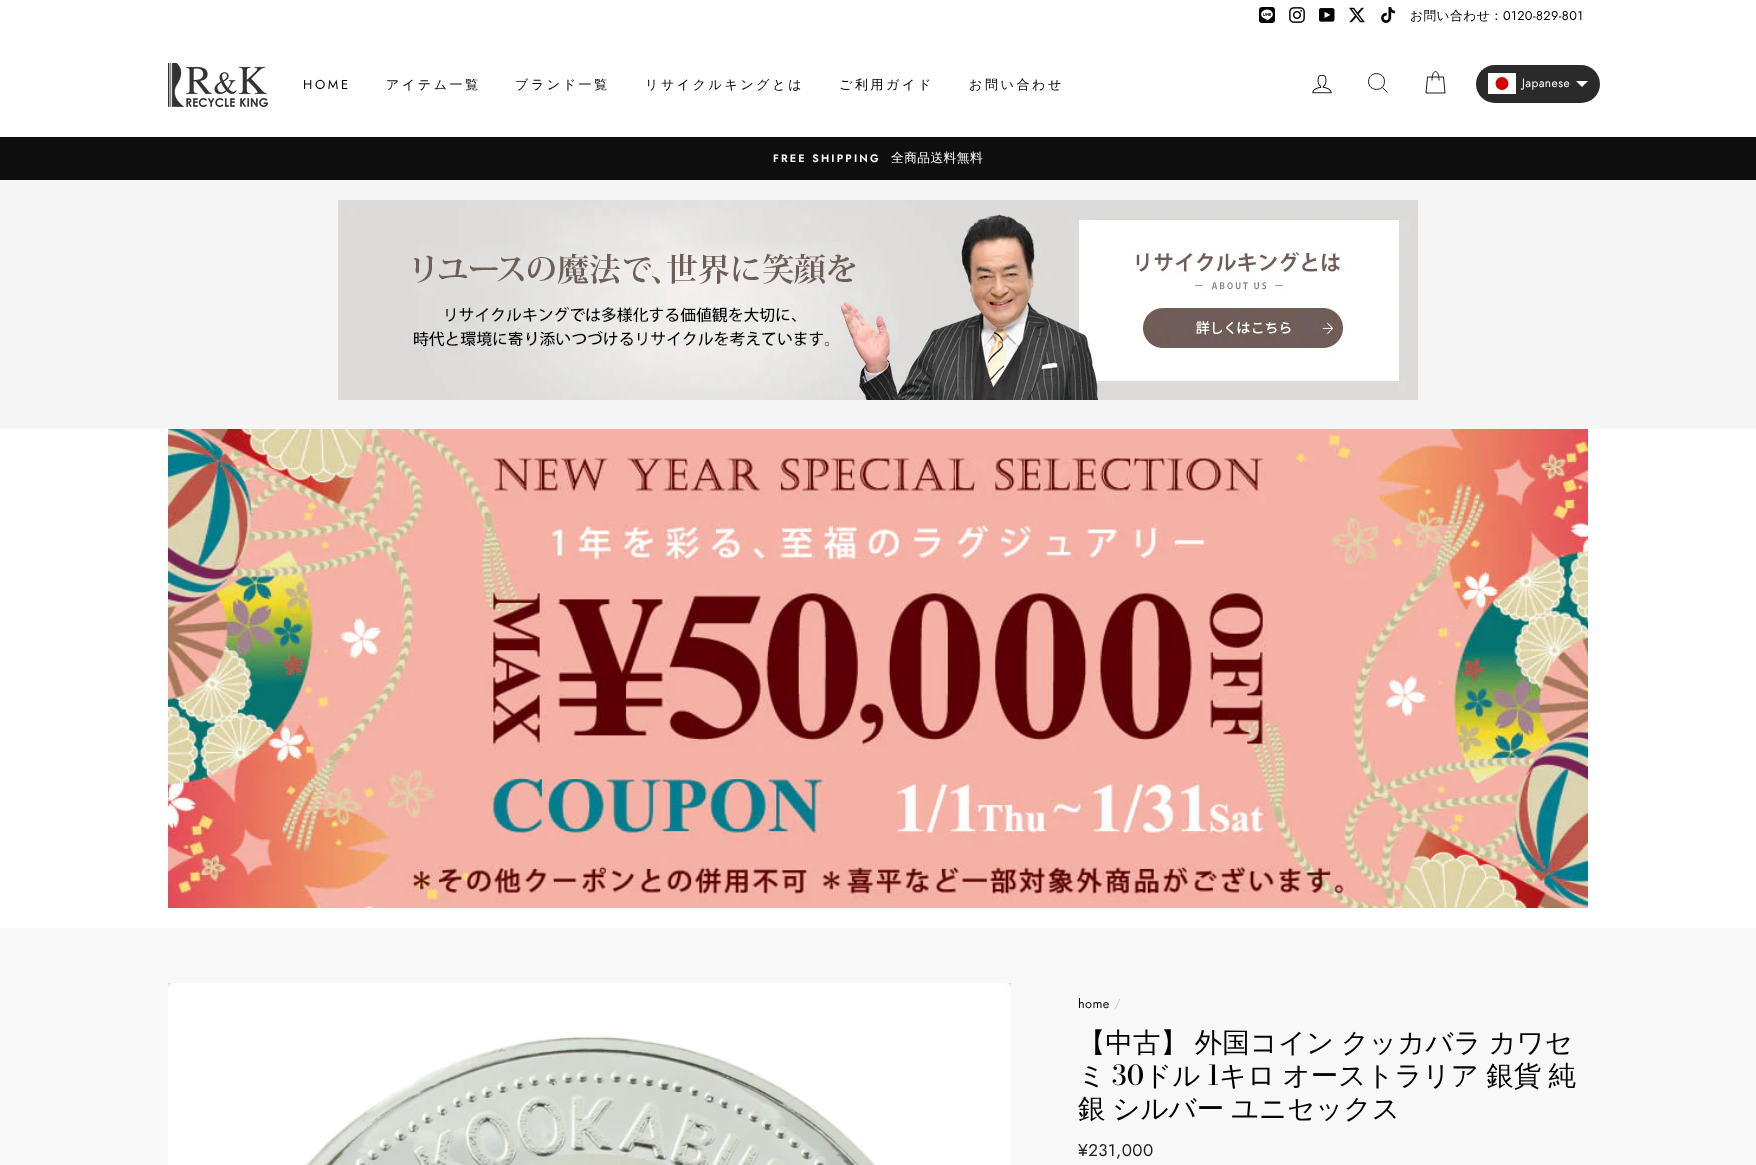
<svg xmlns="http://www.w3.org/2000/svg" width="1756" height="1165" viewBox="0 0 1756 1165">
  <rect width="100%" height="100%" fill="#fff"/>
  <image x="1259" y="7" width="16" height="16" href="img/1.png"/>
  <image x="1289" y="7" width="16" height="16" href="img/2.png"/>
  <image x="1319" y="8" width="16" height="14" href="img/3.png"/>
  <image x="1349" y="7" width="16" height="16" href="img/4.png"/>
  <image x="1381" y="7" width="14" height="16" href="img/5.png"/>
  <image x="168" y="63" width="100" height="44" href="img/6.png"/>
  <image x="1312" y="74" width="20" height="20" href="img/7.png"/>
  <path d="M1384.5 81.5C1384.5 92 1368.5 92 1368.5 81.5C1368.5 71 1384.5 71 1384.5 81.5ZM1387.5 92.5L1382.5 87.5" fill="none" stroke="#000" stroke-width="0.9"/>
  <path d="M1432 80.5C1432 68.5 1439 68.5 1439 80.5M1427.5 77H1443.5L1445 93H1426Z" fill="none" stroke="#000" stroke-width="0.9"/>
  <rect x="1476" y="65" width="124" height="38" rx="19" fill="#2a2a2a"/>
  <path d="M1488 73h28v21H1488z" fill="#fff"/>
  <circle cx="1502" cy="83.5" r="6.5" fill="#d30000"/>
  <path d="M1576 81H1588L1582 87Z" fill="#fff"/>
  <path d="M0 137h1756v43H0z" fill="#0f0f0f"/>
  <path d="M0 180h1756v249H0z" fill="#f5f5f5"/>
  <image x="338" y="200" width="1080" height="200" href="img/8.png"/>
  <image x="168" y="429" width="1420" height="479" href="img/9.png"/>
  <path d="M0 928h1756v237H0z" fill="#f8f8f8"/>
  <image x="168" y="983" width="843" height="182" href="img/10.png"/>
  <text x="1410" y="20" font-family="WenQuanYi Zen Hei" font-size="12.75" font-weight="500" letter-spacing="0.4" fill="#000">お問い合わせ：</text>
  <text x="1503" y="20" font-family="Jost" font-size="12.75" letter-spacing="0.4" fill="#000">0120-829-801</text>
  <text x="303" y="89" font-family="Jost" font-size="13" letter-spacing="2.6" fill="#000">HOME</text>
  <g font-family="WenQuanYi Zen Hei" font-size="13" font-weight="500" letter-spacing="2.6" fill="#000">
    <text x="386" y="89">アイテム一覧</text>
    <text x="515" y="89">ブランド一覧</text>
    <text x="645" y="89">リサイクルキングとは</text>
    <text x="839" y="89">ご利用ガイド</text>
    <text x="969" y="89">お問い合わせ</text>
  </g>
  <text x="1522" y="87" font-family="Jost" font-size="12" letter-spacing="0.4" fill="#fff">Japanese</text>
  <text x="773" y="162" font-family="Jost" font-size="10.75" font-weight="600" letter-spacing="2.2" fill="#fff">FREE SHIPPING</text>
  <text x="891" y="162" font-family="WenQuanYi Zen Hei" font-size="12.75" font-weight="500" letter-spacing="0.4" fill="#fff">全商品送料無料</text>
  <text x="1078" y="1008" font-family="Jost" font-size="12.75" letter-spacing="0.4" fill="#000">home</text>
  <text x="1114" y="1008" font-family="Jost" font-size="12.75" letter-spacing="0.4" fill="#cfcfcf">/</text>
  <g font-family="WenQuanYi Zen Hei" font-size="27.5" font-weight="500" fill="#000">
    <text x="1078" y="1052" word-spacing="-1.5">【中古】 外国コイン クッカバラ カワセ</text>
    <text x="1078" y="1085">ミ</text>
  </g>
  <text x="1112" y="1085" font-family="Bodoni Moda" font-size="27.5" font-weight="500" fill="#000">30</text>
  <text x="1144" y="1085" font-family="WenQuanYi Zen Hei" font-size="27.5" font-weight="500" fill="#000">ドル</text>
  <text x="1207" y="1085" font-family="Bodoni Moda" font-size="27.5" font-weight="500" fill="#000">1</text>
  <g font-family="WenQuanYi Zen Hei" font-size="27.5" font-weight="500" fill="#000">
    <text x="1219" y="1085" word-spacing="-1">キロ オーストラリア 銀貨 純</text>
    <text x="1078" y="1118" word-spacing="-1.5">銀 シルバー ユニセックス</text>
  </g>
  <text x="1078" y="1156" font-family="Jost" font-size="17" letter-spacing="0.4" fill="#1c1d1d">¥231,000</text>
</svg>
